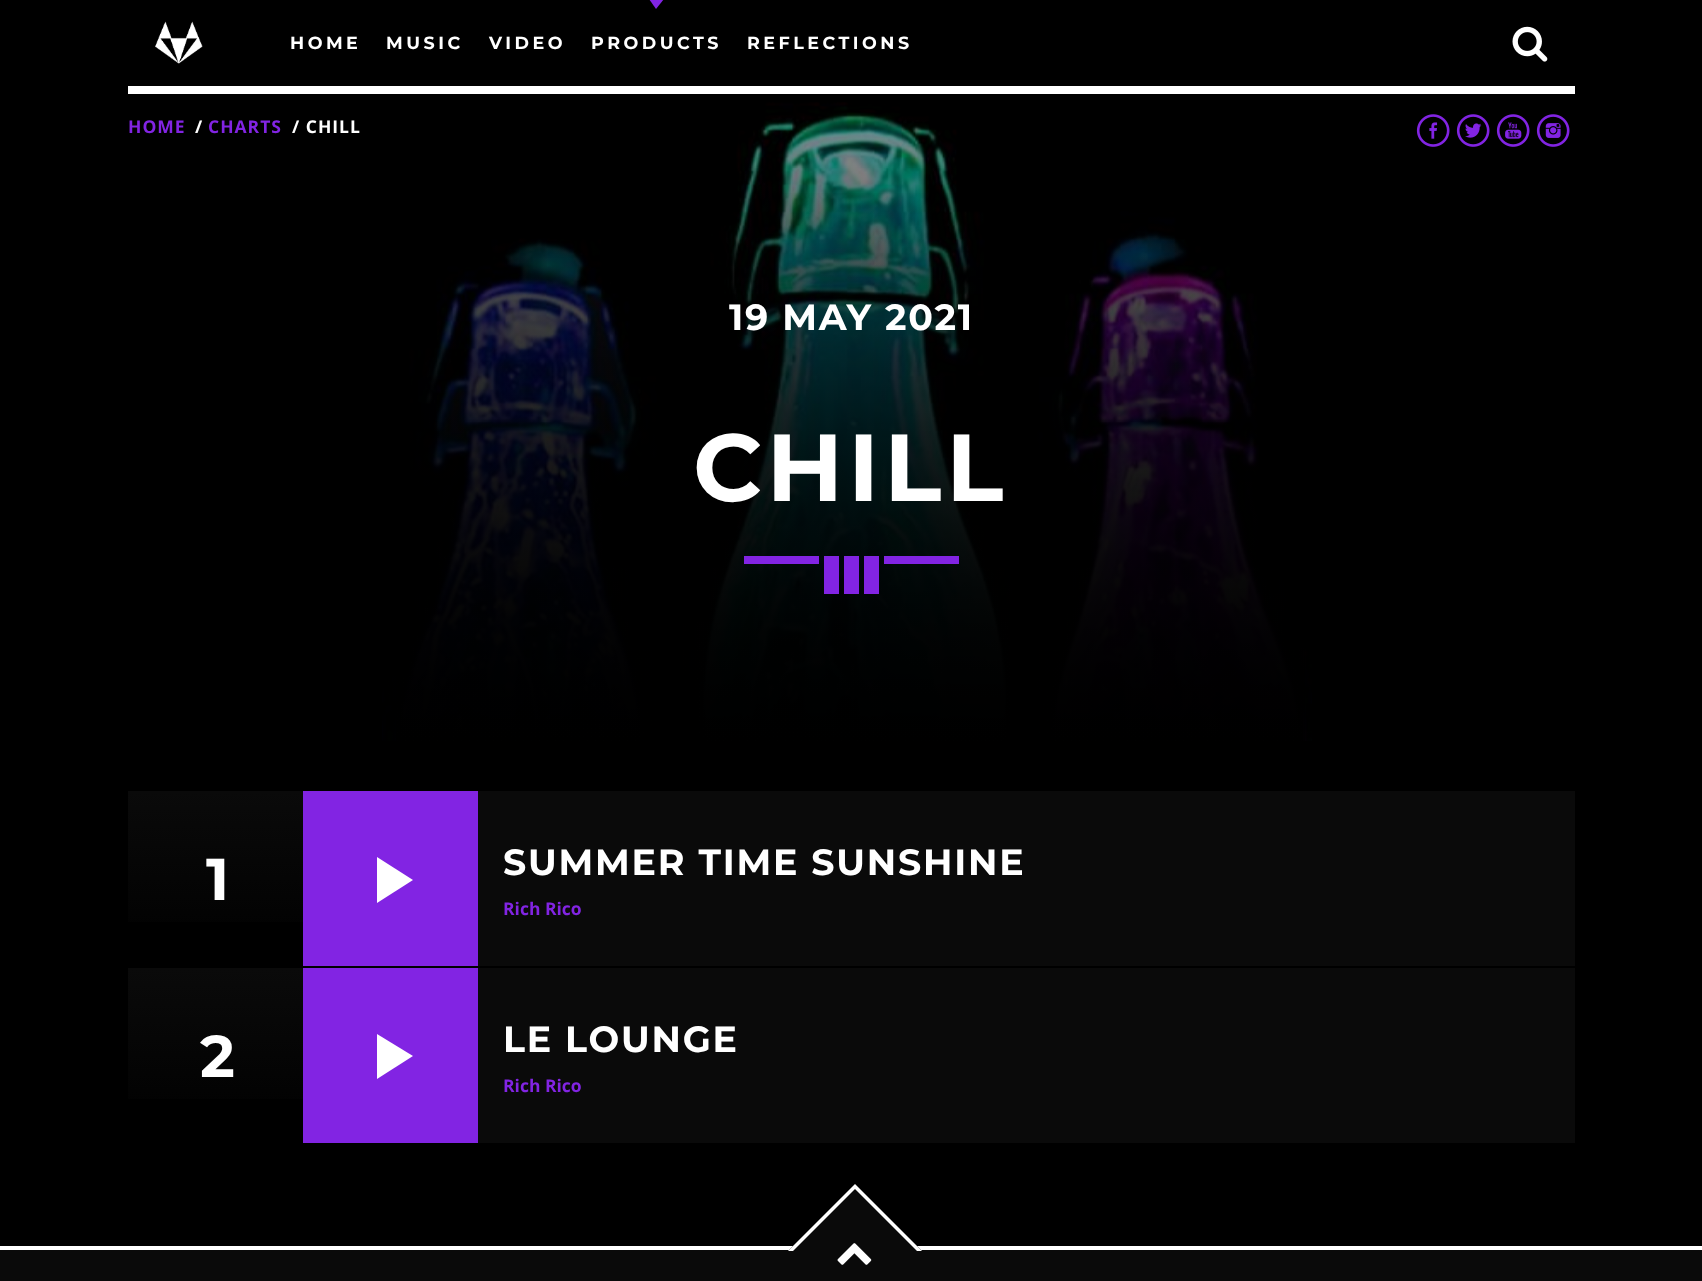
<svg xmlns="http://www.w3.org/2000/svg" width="1702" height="1281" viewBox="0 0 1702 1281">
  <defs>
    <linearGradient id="g1" gradientUnits="userSpaceOnUse" x1="851" y1="-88" x2="851" y2="883"><stop offset="0" stop-color="#000" stop-opacity="0"/><stop offset="1" stop-color="#000" stop-opacity="0.89"/></linearGradient>
    <linearGradient id="g2" gradientUnits="userSpaceOnUse" x1="851" y1="-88" x2="851" y2="913"><stop offset="0" stop-color="#000" stop-opacity="0"/><stop offset="1" stop-color="#000"/></linearGradient>
    <linearGradient id="g3" gradientUnits="userSpaceOnUse" x1="851" y1="181" x2="851" y2="744"><stop offset="0" stop-color="#000" stop-opacity="0"/><stop offset="1" stop-color="#000"/></linearGradient>
    <linearGradient id="g4" gradientUnits="userSpaceOnUse" x1="215" y1="791" x2="215" y2="966"><stop offset="0" stop-color="#0a0a0a"/><stop offset="1" stop-color="#000"/></linearGradient>
    <linearGradient id="g5" gradientUnits="userSpaceOnUse" x1="215" y1="968" x2="215" y2="1143"><stop offset="0" stop-color="#0a0a0a"/><stop offset="1" stop-color="#000"/></linearGradient>
  </defs>
  <rect width="100%" height="100%" fill="#000"/>
  <image x="155" y="21" width="48" height="43" href="img/1.png"/>
  <path d="M649-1H664L656 9Z" fill="#8224e3"/>
  <image x="1512" y="26" width="36" height="36" href="img/2.png"/>
  <path d="M128 86h1447v8H128z" fill="#fff"/>
  <image x="1416" y="114" width="34" height="33" href="img/3.png"/>
  <image x="1456" y="114" width="34" height="33" href="img/4.png"/>
  <image x="1496" y="114" width="34" height="33" href="img/5.png"/>
  <image x="1536" y="114" width="34" height="33" href="img/6.png"/>
  <image x="382" y="102" width="930" height="639" href="img/7.png"/>
  <path d="M383 113h928v628H383z" fill="url(#g1)"/>
  <path d="M393 114h912v627H393z" fill="url(#g2)"/>
  <path d="M396 193h907v548H396z" fill="url(#g3)"/>
  <path d="M744 556h75v8H744z" fill="#8224e3"/>
  <path d="M844 556h15v38H844z" fill="#8224e3"/>
  <path d="M824 556h15v38H824z" fill="#8224e3"/>
  <path d="M864 556h15v38H864z" fill="#8224e3"/>
  <path d="M884 556h75v8H884z" fill="#8224e3"/>
  <path d="M478 791h1097v175H478z" fill="#0a0a0a"/>
  <path d="M128 791h175v131H128z" fill="url(#g4)"/>
  <path d="M303 791h175v175H303z" fill="#8224e3"/>
  <path d="M377 857V903L413 880Z" fill="#fff"/>
  <path d="M478 968h1097v175H478z" fill="#0a0a0a"/>
  <path d="M128 968h175v131H128z" fill="url(#g5)"/>
  <path d="M303 968h175v175H303z" fill="#8224e3"/>
  <path d="M377 1034V1079L413 1056Z" fill="#fff"/>
  <path d="M0 1250h1702v31H0z" fill="#0a0a0a"/>
  <path d="M0 1246h1702v4H0z" fill="#fff"/>
  <path d="M855 1184L922 1251L855 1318L788 1251Z" fill="#0a0a0a"/>
  <path d="M855 1184L922 1251H917L855 1189Z" fill="#fff"/>
  <path d="M788 1251L855 1184V1189L793 1251Z" fill="#fff"/>
  <image x="837" y="1243" width="35" height="22" href="img/8.png"/>
  <g font-family="Montserrat" font-size="17.5" font-weight="bold" letter-spacing="3.5" fill="#fff">
    <text x="290" y="49">HOME</text>
    <text x="386" y="49">MUSIC</text>
    <text x="489" y="49">VIDEO</text>
    <text x="591" y="49">PRODUCTS</text>
    <text x="747" y="49">REFLECTIONS</text>
  </g>
  <text x="128" y="133" font-family="Open Sans" font-size="17.5" font-weight="bold" letter-spacing="1" fill="#8224e3">HOME</text>
  <text x="195" y="133" font-family="Open Sans" font-size="17.5" font-weight="bold" letter-spacing="1" fill="#fff">/</text>
  <text x="208" y="133" font-family="Open Sans" font-size="17.5" font-weight="bold" letter-spacing="1" fill="#8224e3">CHARTS</text>
  <text x="292" y="133" font-family="Open Sans" font-size="17.5" font-weight="bold" letter-spacing="1" fill="#fff">/ CHILL</text>
  <text x="729" y="330" font-family="Montserrat" font-size="36.4" font-weight="bold" letter-spacing="1.8" fill="#fff">19 MAY 2021</text>
  <text x="693" y="501" font-family="Montserrat" font-size="95" font-weight="bold" letter-spacing="4.75" fill="#fff">CHILL</text>
  <text x="206" y="900" font-family="Montserrat" font-size="59" font-weight="bold" letter-spacing="-5" fill="#fff">1</text>
  <text x="503" y="875" font-family="Montserrat" font-size="36.4" font-weight="bold" letter-spacing="1.8" fill="#fff">SUMMER TIME SUNSHINE</text>
  <text x="503" y="915" font-family="Open Sans" font-size="17.5" font-weight="bold" fill="#8224e3">Rich Rico</text>
  <text x="200" y="1077" font-family="Montserrat" font-size="59" font-weight="bold" letter-spacing="-5" fill="#fff">2</text>
  <text x="503" y="1052" font-family="Montserrat" font-size="36.4" font-weight="bold" letter-spacing="1.8" fill="#fff">LE LOUNGE</text>
  <text x="503" y="1092" font-family="Open Sans" font-size="17.5" font-weight="bold" fill="#8224e3">Rich Rico</text>
</svg>
